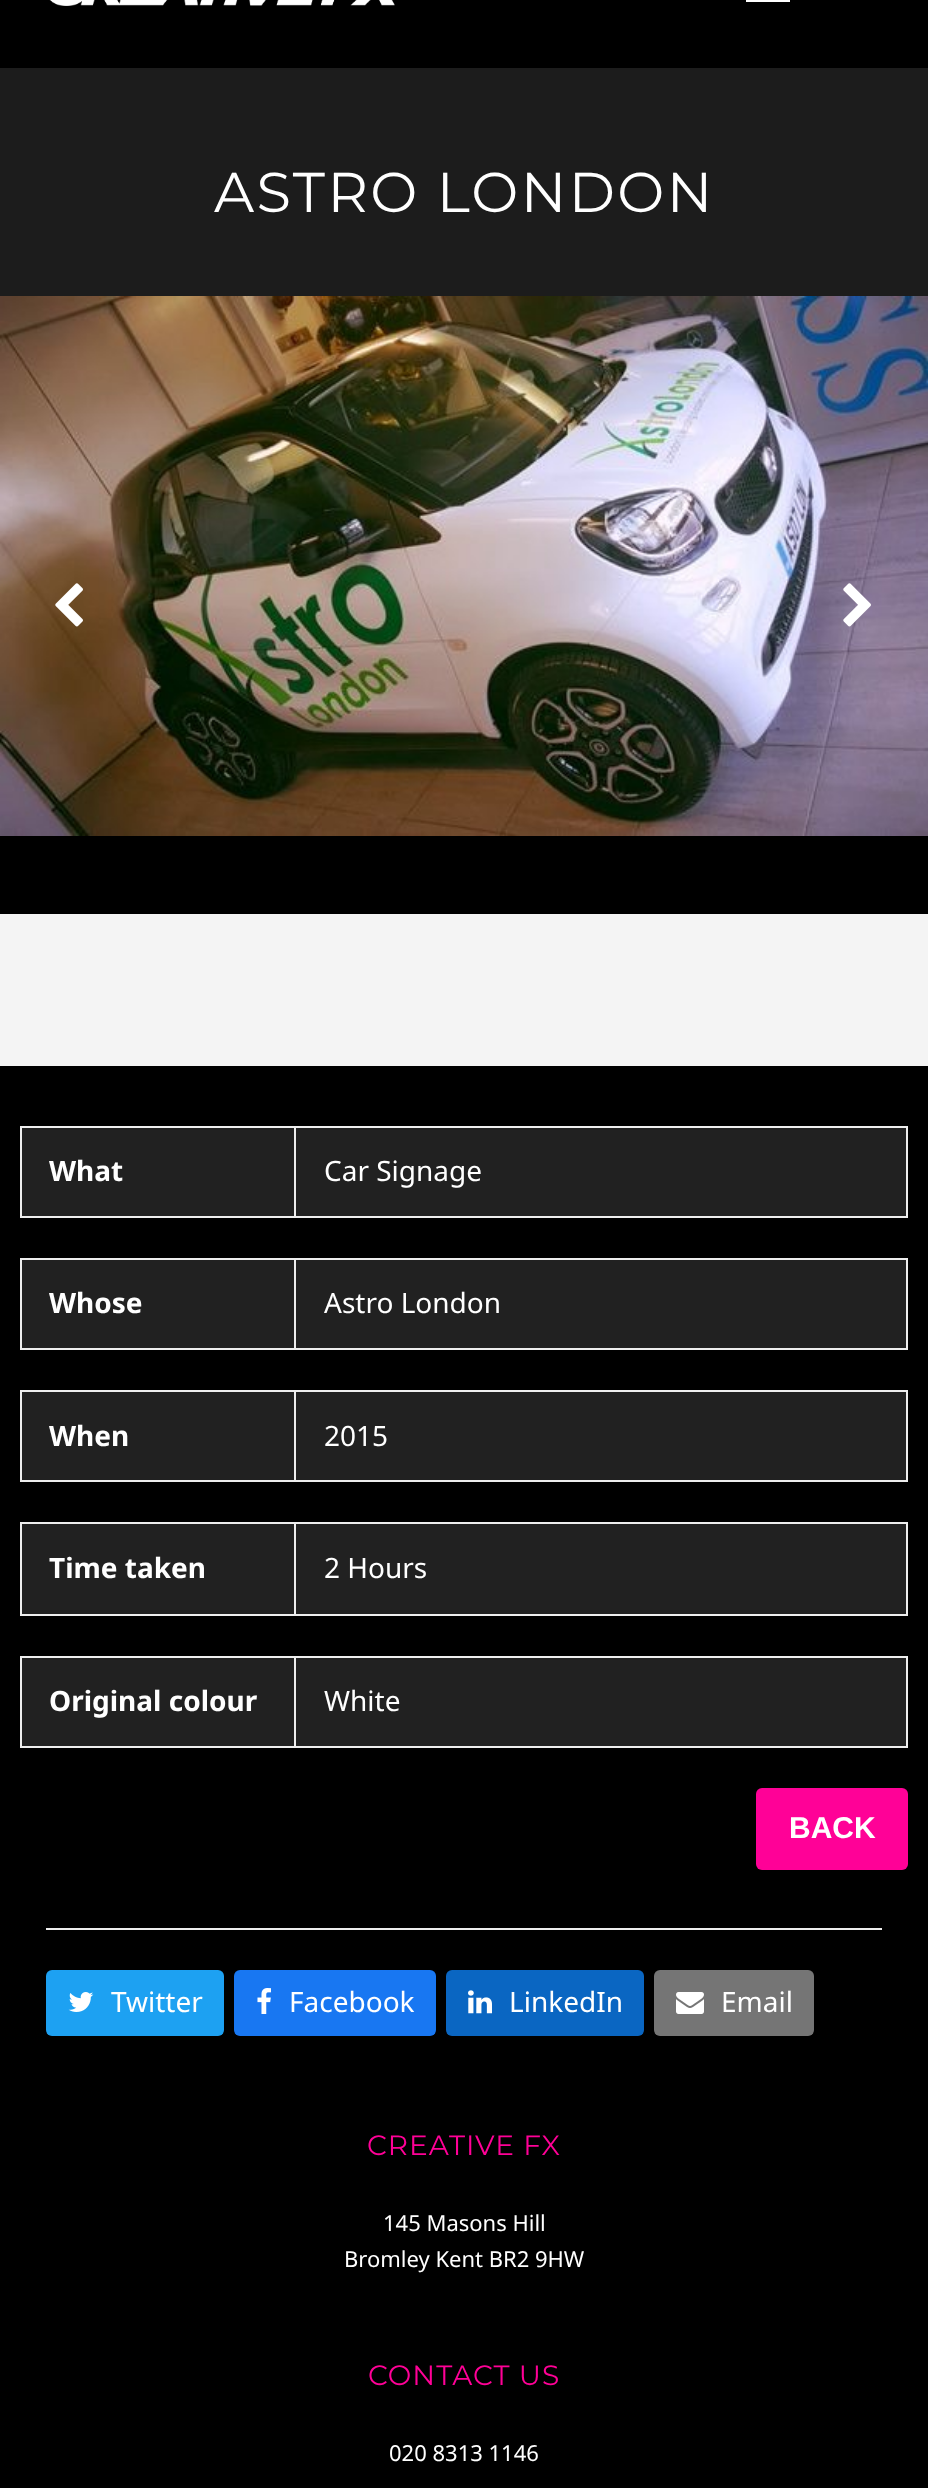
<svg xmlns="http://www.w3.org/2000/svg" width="928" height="2488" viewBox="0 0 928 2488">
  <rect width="100%" height="100%" fill="#000"/>
  <image x="49" y="0" width="346" height="6" href="img/1.png"/>
  <path d="M746 0h44v2H746z" fill="#fff"/>
  <path d="M0 68h928v228H0z" fill="#1c1c1c"/>
  <image x="0" y="296" width="928" height="540" href="img/2.png"/>
  <image x="55" y="583" width="28" height="44" href="img/3.png"/>
  <image x="843" y="583" width="28" height="44" href="img/4.png"/>
  <path d="M0 914h928v152H0z" fill="#f4f4f4"/>
  <path d="M22 1128h272v88H22z" fill="#212121"/>
  <path d="M294 1126h614v2H294z" fill="#eee"/>
  <path d="M906 1126h2v92H906z" fill="#eee"/>
  <path d="M294 1216h614v2H294z" fill="#eee"/>
  <path d="M294 1126h2v92H294z" fill="#eee"/>
  <path d="M20 1126h276v2H20z" fill="#eee"/>
  <path d="M20 1216h276v2H20z" fill="#eee"/>
  <path d="M20 1126h2v92H20z" fill="#eee"/>
  <path d="M296 1128h610v88H296z" fill="#212121"/>
  <path d="M22 1260h272v88H22z" fill="#212121"/>
  <path d="M294 1258h614v2H294z" fill="#eee"/>
  <path d="M906 1258h2v92H906z" fill="#eee"/>
  <path d="M294 1348h614v2H294z" fill="#eee"/>
  <path d="M294 1258h2v92H294z" fill="#eee"/>
  <path d="M20 1258h276v2H20z" fill="#eee"/>
  <path d="M20 1348h276v2H20z" fill="#eee"/>
  <path d="M20 1258h2v92H20z" fill="#eee"/>
  <path d="M296 1260h610v88H296z" fill="#212121"/>
  <path d="M22 1392h272v88H22z" fill="#212121"/>
  <path d="M294 1390h614v2H294z" fill="#eee"/>
  <path d="M906 1390h2v92H906z" fill="#eee"/>
  <path d="M294 1480h614v2H294z" fill="#eee"/>
  <path d="M294 1390h2v92H294z" fill="#eee"/>
  <path d="M20 1390h276v2H20z" fill="#eee"/>
  <path d="M20 1480h276v2H20z" fill="#eee"/>
  <path d="M20 1390h2v92H20z" fill="#eee"/>
  <path d="M296 1392h610v88H296z" fill="#212121"/>
  <path d="M22 1524h272v90H22z" fill="#212121"/>
  <path d="M294 1522h614v2H294z" fill="#eee"/>
  <path d="M906 1522h2v94H906z" fill="#eee"/>
  <path d="M294 1614h614v2H294z" fill="#eee"/>
  <path d="M294 1522h2v94H294z" fill="#eee"/>
  <path d="M20 1522h276v2H20z" fill="#eee"/>
  <path d="M20 1614h276v2H20z" fill="#eee"/>
  <path d="M20 1522h2v94H20z" fill="#eee"/>
  <path d="M296 1524h610v90H296z" fill="#212121"/>
  <path d="M22 1658h272v88H22z" fill="#212121"/>
  <path d="M294 1656h614v2H294z" fill="#eee"/>
  <path d="M906 1656h2v92H906z" fill="#eee"/>
  <path d="M294 1746h614v2H294z" fill="#eee"/>
  <path d="M294 1656h2v92H294z" fill="#eee"/>
  <path d="M20 1656h276v2H20z" fill="#eee"/>
  <path d="M20 1746h276v2H20z" fill="#eee"/>
  <path d="M20 1656h2v92H20z" fill="#eee"/>
  <path d="M296 1658h610v88H296z" fill="#212121"/>
  <rect x="756" y="1788" width="152" height="82" rx="6" fill="#ff0197"/>
  <path d="M46 1928h836v2H46z" fill="#eee"/>
  <rect x="46" y="1970" width="178" height="66" rx="6" fill="#1da1f2"/>
  <image x="68" y="1992" width="26" height="20" href="img/5.png"/>
  <rect x="234" y="1970" width="202" height="66" rx="6" fill="#1877f2"/>
  <image x="257" y="1988" width="14" height="26" href="img/6.png"/>
  <rect x="446" y="1970" width="198" height="66" rx="6" fill="#0a66c2"/>
  <image x="468" y="1990" width="24" height="24" href="img/7.png"/>
  <rect x="654" y="1970" width="160" height="66" rx="6" fill="#757575"/>
  <image x="676" y="1992" width="28" height="22" href="img/8.png"/>
  <text x="214" y="212" font-family="Montserrat" font-size="56" letter-spacing="2.4" fill="#fff">ASTRO LONDON</text>
  <text x="49" y="1181" font-family="Noto Sans" font-size="28" font-weight="bold" fill="#fff">What</text>
  <text x="324" y="1181" font-family="Noto Sans" font-size="28" fill="#fff">Car Signage</text>
  <text x="49" y="1313" font-family="Noto Sans" font-size="28" font-weight="bold" fill="#fff">Whose</text>
  <text x="324" y="1313" font-family="Noto Sans" font-size="28" fill="#fff">Astro London</text>
  <text x="49" y="1446" font-family="Noto Sans" font-size="28" font-weight="bold" fill="#fff">When</text>
  <text x="324" y="1446" font-family="Noto Sans" font-size="28" fill="#fff">2015</text>
  <text x="49" y="1578" font-family="Noto Sans" font-size="28" font-weight="bold" fill="#fff">Time taken</text>
  <text x="324" y="1578" font-family="Noto Sans" font-size="28" fill="#fff">2 Hours</text>
  <text x="49" y="1711" font-family="Noto Sans" font-size="28" font-weight="bold" fill="#fff">Original colour</text>
  <text x="324" y="1711" font-family="Noto Sans" font-size="28" fill="#fff">White</text>
  <text x="789" y="1838" font-family="Liberation Sans" font-size="30" font-weight="bold" fill="#fff">BACK</text>
  <g font-family="Noto Sans" font-size="28" fill="#fff">
    <text x="111" y="2012">Twitter</text>
    <text x="289" y="2012">Facebook</text>
    <text x="509" y="2012">LinkedIn</text>
    <text x="721" y="2012">Email</text>
  </g>
  <text x="367" y="2155" font-family="Montserrat" font-size="28" letter-spacing="1" fill="#ff0197">CREATIVE FX</text>
  <g font-family="Noto Sans" font-size="22" fill="#fff">
    <text x="383" y="2231">145 Masons Hill</text>
    <text x="344" y="2267">Bromley Kent BR2 9HW</text>
  </g>
  <text x="368" y="2385" font-family="Montserrat" font-size="28" letter-spacing="1" fill="#ff0197">CONTACT US</text>
  <text x="389" y="2461" font-family="Noto Sans" font-size="22" fill="#fff">020 8313 1146</text>
</svg>
